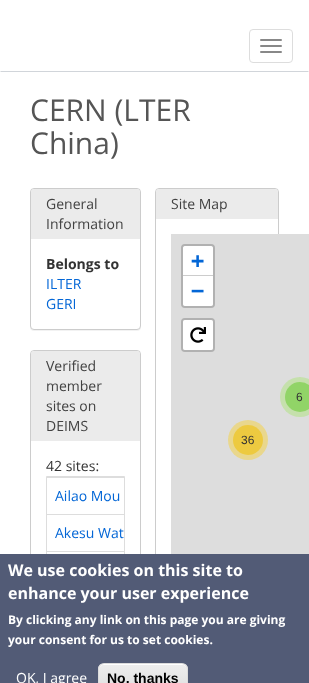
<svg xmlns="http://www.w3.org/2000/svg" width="309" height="683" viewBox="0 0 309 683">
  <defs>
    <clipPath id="clip1"><rect x="98" y="663" width="90" height="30" rx="6"/></clipPath>
    <linearGradient id="g1" gradientUnits="userSpaceOnUse" x1="143" y1="664" x2="143" y2="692"><stop offset="0.05" stop-color="#ededed"/><stop offset="1" stop-color="#dfdfdf"/></linearGradient>
  </defs>
  <rect width="100%" height="100%" fill="#fff"/>
  <path d="M309 72H0L1 71H308Z" fill="#d1d5da"/>
  <rect x="249.5" y="29.5" width="43" height="33" rx="3.5" fill="none" stroke="#ddd"/>
  <rect x="260" y="39" width="22" height="2" rx="1" fill="#888"/>
  <rect x="260" y="45" width="22" height="2" rx="1" fill="#888"/>
  <rect x="260" y="51" width="22" height="2" rx="1" fill="#888"/>
  <rect x="30" y="189" width="111" height="142" rx="4" fill="#0000000d" filter="blur(0.5px)"/>
  <rect x="30.5" y="188.5" width="110" height="141" rx="3.5" fill="#fff" stroke="#ccc"/>
  <path d="M34 189H137C138.5 189 140 190.5 140 192V239H31V192C31 190.5 32.5 189 34 189Z" fill="#ebebeb"/>
  <rect x="30.5" y="350.5" width="110" height="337" rx="3.5" fill="none" stroke="#ccc"/>
  <path d="M34 351H137C138.5 351 140 352.5 140 354V441H31V354C31 352.5 32.5 351 34 351Z" fill="#ebebeb"/>
  <path d="M46.5 476.5h78v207H46.5z" fill="none" stroke="#ddd"/>
  <path d="M47 477h77v1H47z" fill="#ddd"/>
  <path d="M47 514h77v1H47z" fill="#ddd"/>
  <path d="M47 551h77v1H47z" fill="#ddd"/>
  <rect x="155.5" y="188.5" width="123" height="461" rx="3.5" fill="none" stroke="#ccc"/>
  <path d="M159 189H275C276.5 189 278 190.5 278 192V219H156V192C156 190.5 157.5 189 159 189Z" fill="#ebebeb"/>
  <path d="M171 234h138v320H171z" fill="#ddd"/>
  <rect x="182" y="245" width="32" height="62" rx="3" fill="none" stroke="#b1b1b1" stroke-width="2"/>
  <path d="M185 246H211C212 246 213 247 213 248V276H183V248C183 247 184 246 185 246Z" fill="#fff"/>
  <path d="M183 275h30v1H183z" fill="#ccc"/>
  <path d="M183 276H213V304C213 305 212 306 211 306H185C184 306 183 305 183 304Z" fill="#fff"/>
  <rect x="182" y="319" width="32" height="32" rx="3" fill="none" stroke="#b1b1b1" stroke-width="2"/>
  <rect x="183" y="320" width="30" height="30" rx="2" fill="#fff"/>
  <image x="190" y="327" width="16" height="16" href="img/1.png"/>
  <circle cx="300" cy="397" r="20" fill="#c5e0ac"/>
  <circle cx="300" cy="397" r="15" fill="#91d467"/>
  <circle cx="248" cy="440" r="20" fill="#e9d78d"/>
  <circle cx="248" cy="440" r="15" fill="#edca40"/>
  <path d="M0 554h309v129H0z" fill="#525b76"/>
  <g clip-path="url(#clip1)">
    <path d="M98 664h90v19H98z" fill="url(#g1)"/>
  </g>
  <path d="M104 665H182C185 665 187 667 187 670C187 661 175 664 169 664H117C111 664 99 661 99 670C99 667 101 665 104 665Z" fill="#fff"/>
  <rect x="98.5" y="663.5" width="89" height="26" rx="5.5" fill="none" stroke="#dcdcdc"/>
  <g font-family="Open Sans" font-size="30" fill="#555">
    <text x="30" y="121">CERN (LTER</text>
    <text x="30" y="154">China)</text>
  </g>
  <g font-family="Open Sans" font-size="14" fill="#424242">
    <text x="46" y="209">General</text>
    <text x="46" y="229">Information</text>
  </g>
  <text x="46" y="269" font-family="Open Sans" font-size="14" font-weight="bold" fill="#333">Belongs to</text>
  <g font-family="Open Sans" font-size="14" fill="#0366d6">
    <text x="46" y="289">ILTER</text>
    <text x="46" y="309">GERI</text>
  </g>
  <g font-family="Open Sans" font-size="14" fill="#424242">
    <text x="46" y="371">Verified</text>
    <text x="46" y="391">member</text>
    <text x="46" y="411">sites on</text>
    <text x="46" y="431">DEIMS</text>
  </g>
  <text x="46" y="471" font-family="Open Sans" font-size="14" fill="#333">42 sites:</text>
  <g font-family="Open Sans" font-size="14" fill="#0366d6">
    <text x="55" y="501">Ailao Mou</text>
    <text x="55" y="538">Akesu Wat</text>
  </g>
  <text x="171" y="209" font-family="Open Sans" font-size="14" fill="#424242">Site Map</text>
  <g font-family="DejaVu Sans Mono" font-size="22" font-weight="bold" fill="#0366d6">
    <text x="191" y="268">+</text>
    <text x="191" y="298">−</text>
  </g>
  <g font-family="Liberation Sans" font-size="12" fill="#333">
    <text x="296" y="401">6</text>
    <text x="241" y="444">36</text>
  </g>
  <g font-family="Open Sans" font-size="16" font-weight="bold" fill="#fff">
    <text x="8" y="576">We use cookies on this site to</text>
    <text x="8" y="599">enhance your user experience</text>
  </g>
  <g font-family="Open Sans" font-size="12" font-weight="bold" fill="#fff">
    <text x="8" y="624">By clicking any link on this page you are giving</text>
    <text x="8" y="644">your consent for us to set cookies.</text>
  </g>
  <text x="16" y="683" font-family="Open Sans" font-size="14" fill="#fff">OK, I agree</text>
  <text x="107" y="683" font-family="Liberation Sans" font-size="14" font-weight="bold" fill="#000">No, thanks</text>
</svg>
